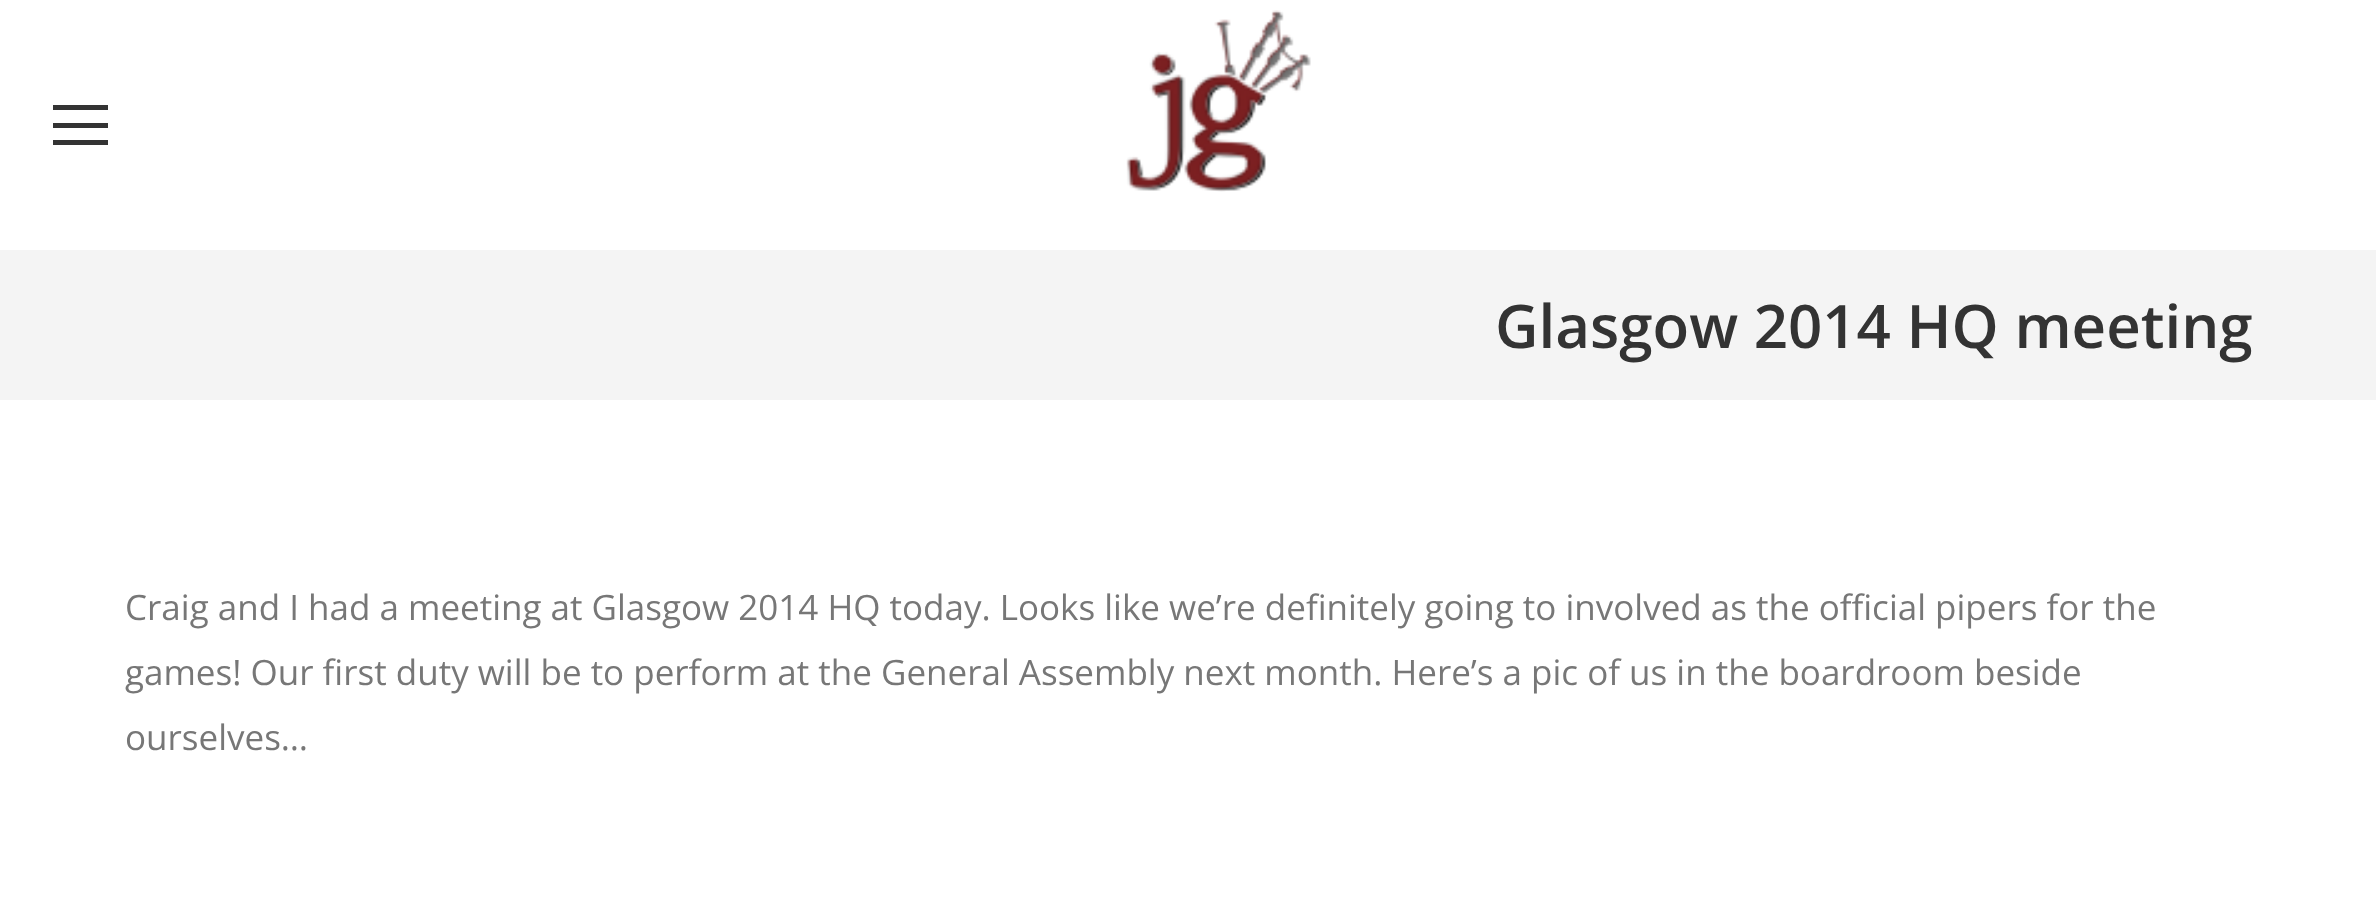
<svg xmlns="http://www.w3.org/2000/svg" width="2376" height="917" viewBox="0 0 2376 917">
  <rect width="100%" height="100%" fill="#fff"/>
  <path d="M53 105h55v5H53z" fill="#333"/>
  <path d="M53 123h55v5H53z" fill="#333"/>
  <path d="M53 140h55v5H53z" fill="#333"/>
  <image x="1126" y="10" width="185" height="182" href="img/1.png"/>
  <path d="M0 250h2376v150H0z" fill="#f4f4f4"/>
  <text x="1495" y="348" font-family="Open Sans" font-size="60" font-weight="600" fill="#333">Glasgow 2014 HQ meeting</text>
  <g font-family="Open Sans" font-size="35" fill="#777">
    <text x="125" y="620">Craig and I had a meeting at Glasgow 2014 HQ today. Looks like we’re definitely going to involved as the official pipers for the</text>
    <text x="125" y="685">games! Our first duty will be to perform at the General Assembly next month. Here’s a pic of us in the boardroom beside</text>
    <text x="125" y="750">ourselves…</text>
  </g>
</svg>
